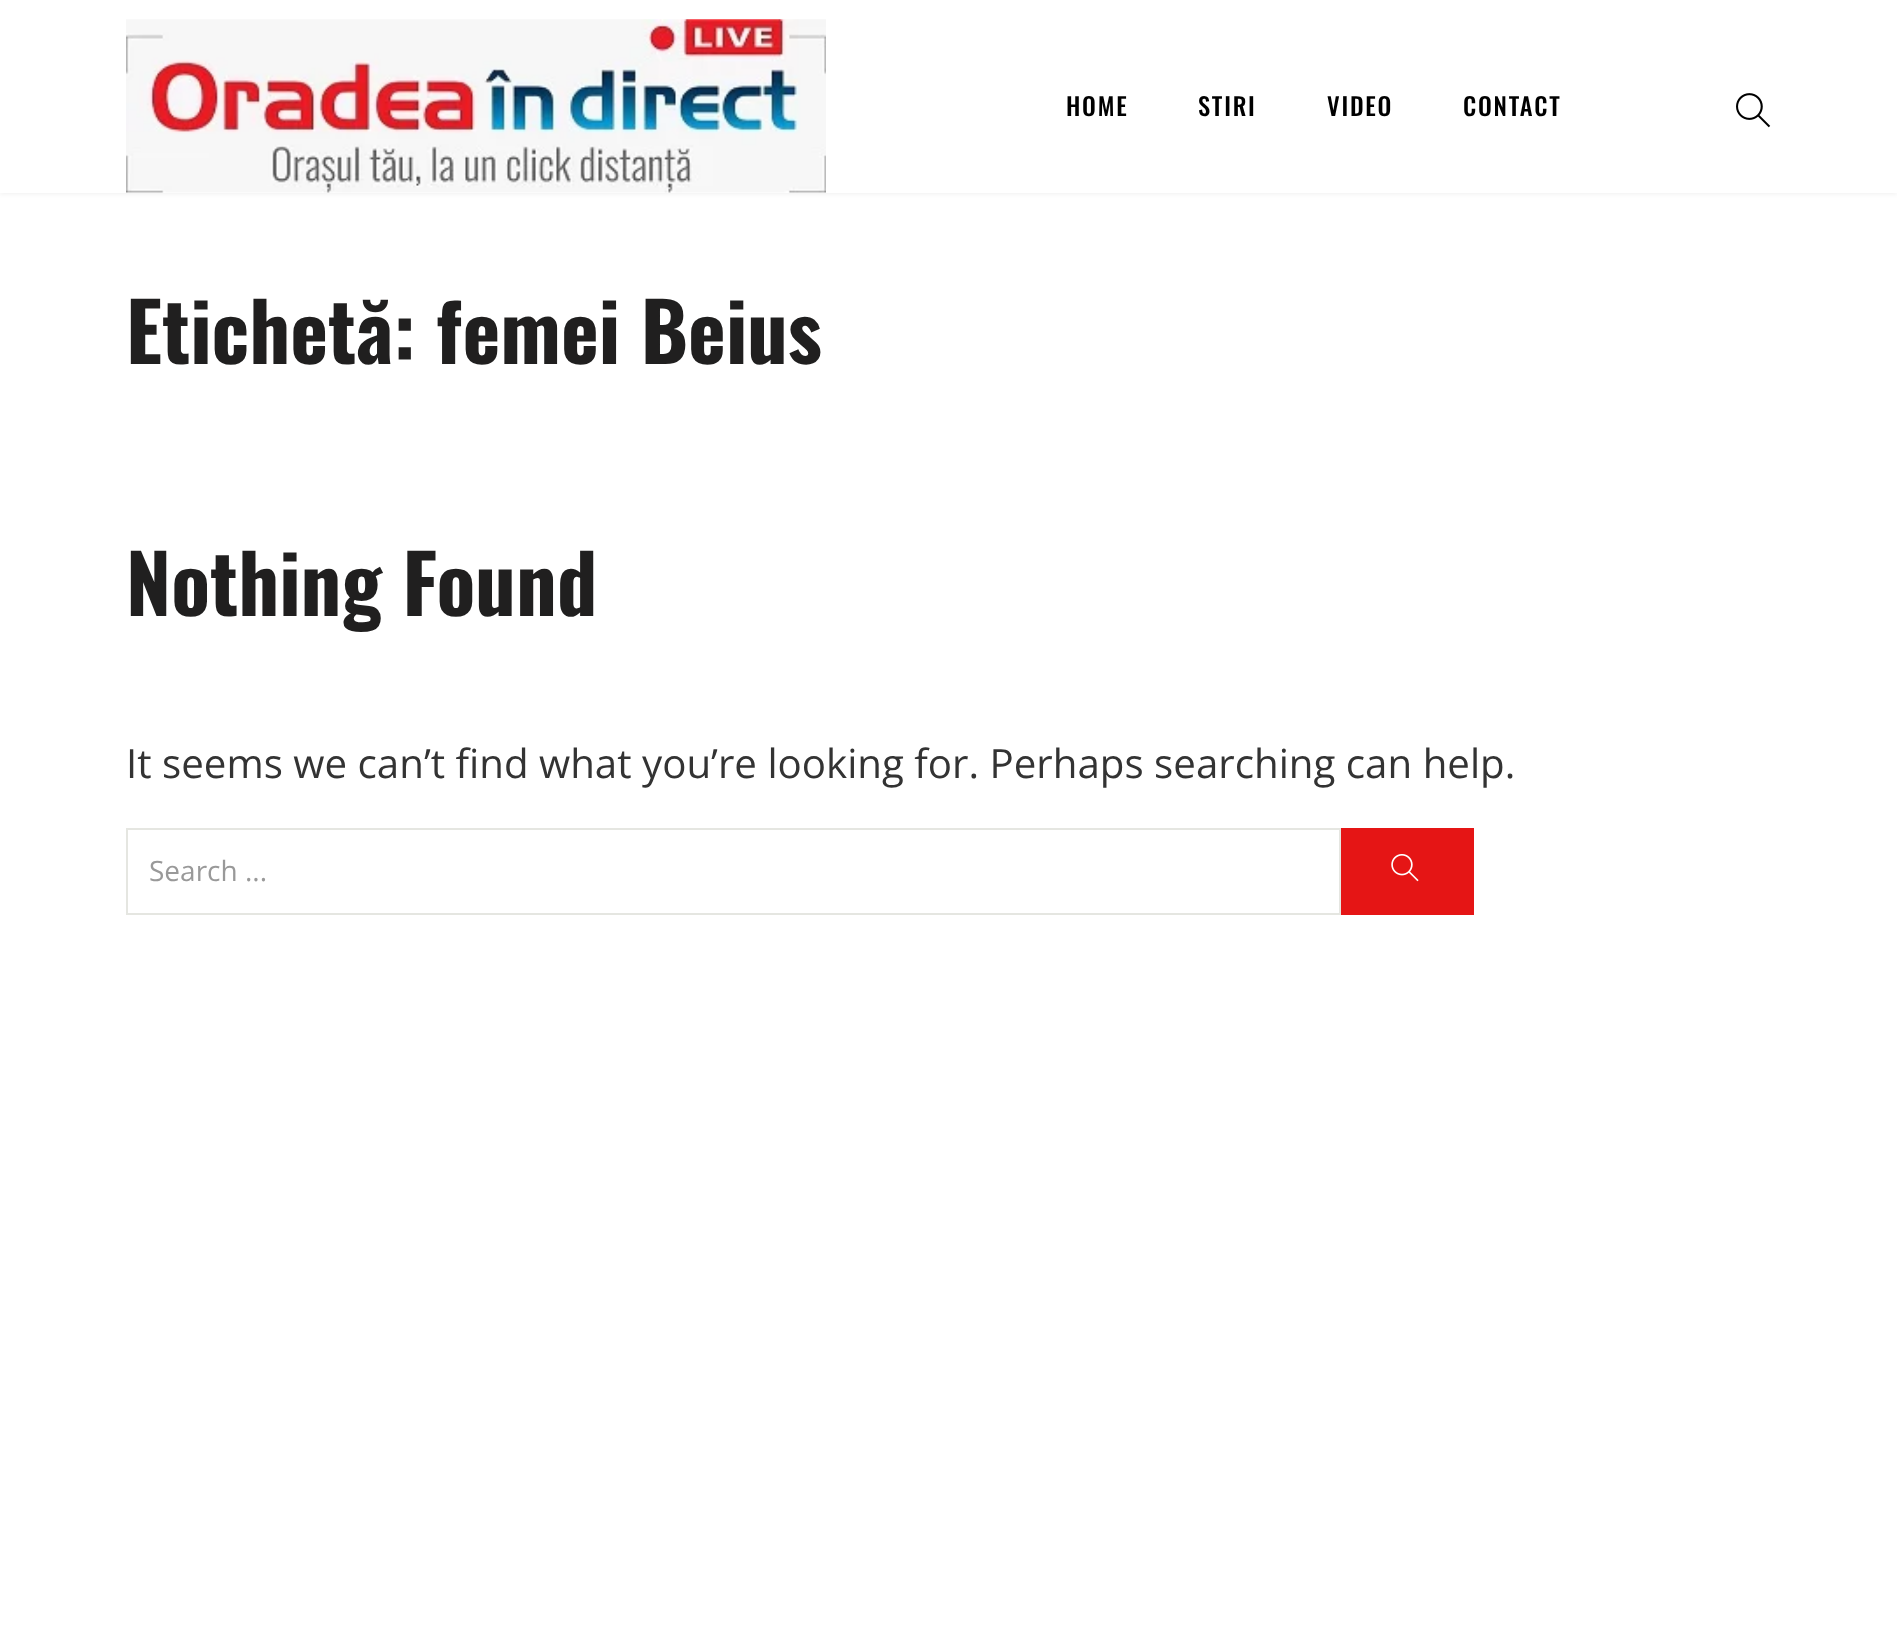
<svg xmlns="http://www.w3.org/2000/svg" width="1897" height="1633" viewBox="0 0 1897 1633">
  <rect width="100%" height="100%" fill="#fff"/>
  <path d="M0 2h1897v192H0z" fill="#0000000f" filter="blur(2.5px)"/>
  <path d="M0 0h1897v193H0z" fill="#fff"/>
  <image x="126" y="19" width="700" height="174" href="img/1.png"/>
  <image x="1736" y="93" width="35" height="35" href="img/2.png"/>
  <path d="M127 829h1213v85H127z" fill="none" stroke="#e5e6e1" stroke-width="2"/>
  <path d="M1341 828h133v87H1341z" fill="#e51515"/>
  <image x="1391" y="854" width="28" height="28" href="img/3.png"/>
  <g font-family="Oswald" font-size="24.5" font-weight="500" letter-spacing="1.75" fill="#000">
    <text x="1066" y="116">HOME</text>
    <text x="1198" y="116">STIRI</text>
    <text x="1327" y="116">VIDEO</text>
    <text x="1463" y="116">CONTACT</text>
  </g>
  <g font-family="Oswald" font-size="80.5" font-weight="bold" fill="#201f1f">
    <text x="126" y="364">Etichetă: femei Beius</text>
    <text x="126" y="616">Nothing Found</text>
  </g>
  <text x="126" y="778" font-family="Open Sans" font-size="40.25" fill="#333">It seems we can’t find what you’re looking for. Perhaps searching can help.</text>
  <text x="149" y="881" font-family="Open Sans" font-size="28" fill="#999">Search ...</text>
</svg>
